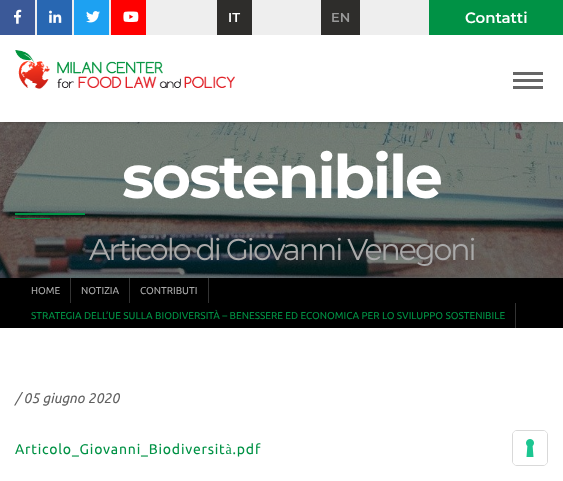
<svg xmlns="http://www.w3.org/2000/svg" width="563" height="481" viewBox="0 0 563 481">
  <rect width="100%" height="100%" fill="#fff"/>
  <path d="M35 0h394v35H35z" fill="#eee"/>
  <path d="M0 0h35v35H0z" fill="#3b5998"/>
  <image x="14" y="9" width="8" height="15" href="img/1.png"/>
  <path d="M37 0h35v35H37z" fill="#2867b2"/>
  <image x="49" y="10" width="13" height="13" href="img/2.png"/>
  <path d="M74 0h35v35H74z" fill="#1da1f2"/>
  <image x="86" y="11" width="14" height="12" href="img/3.png"/>
  <path d="M111 0h35v35H111z" fill="#f00"/>
  <image x="123" y="11" width="16" height="11" href="img/4.png"/>
  <path d="M217 0h35v35H217z" fill="#2e2d2b"/>
  <path d="M321 0h39v35H321z" fill="#2e2d2b"/>
  <path d="M429 0h134v35H429z" fill="#009245"/>
  <image x="0" y="122" width="563" height="156" href="img/6.png"/>
  <path d="M4 41h555v79H4z" fill="#000000bf" filter="blur(2.5px)"/>
  <path d="M0 35h563v87H0z" fill="#fff"/>
  <image x="15" y="50" width="220" height="39" href="img/5.png"/>
  <path d="M513 72h30v3H513z" fill="#666"/>
  <path d="M513 79h30v3H513z" fill="#666"/>
  <path d="M513 86h30v3H513z" fill="#666"/>
  <path d="M15 213h70v2H15z" fill="#009245"/>
  <path d="M15 218h35v1H15z" fill="#009245"/>
  <path d="M0 278h563v50H0z" fill="#000"/>
  <path d="M70 278h1v25H70z" fill="#333"/>
  <path d="M129 278h1v25H129z" fill="#333"/>
  <path d="M208 278h1v25H208z" fill="#333"/>
  <path d="M515 303h1v25H515z" fill="#333"/>
  <rect x="512.5" y="430.5" width="35" height="35" rx="4.5" fill="none" stroke="#d9d9d9"/>
  <rect x="513" y="431" width="34" height="34" rx="4" fill="#fff"/>
  <image x="526" y="439" width="8" height="18" href="img/7.png"/>
  <text x="228" y="22" font-family="Montserrat" font-size="13" font-weight="600" fill="#fff">IT</text>
  <text x="331" y="22" font-family="Montserrat" font-size="13" font-weight="600" fill="#999">EN</text>
  <text x="465" y="23" font-family="Montserrat" font-size="15" font-weight="600" fill="#fff">Contatti</text>
  <text x="122" y="198" font-family="Montserrat" font-size="60" font-weight="bold" letter-spacing="-2" fill="#fff">sostenibile</text>
  <text x="89" y="260" font-family="Montserrat" font-size="30" letter-spacing="-2" fill="#aaa">Articolo di Giovanni Venegoni</text>
  <g font-family="Ubuntu" font-size="10" fill="#aaa">
    <text x="31" y="294">HOME</text>
    <text x="81" y="294">NOTIZIA</text>
    <text x="140" y="294">CONTRIBUTI</text>
  </g>
  <text x="31" y="319" font-family="Ubuntu" font-size="10" fill="#009245">STRATEGIA DELL’UE SULLA BIODIVERSITÀ – BENESSERE ED ECONOMICA PER LO SVILUPPO SOSTENIBILE</text>
  <text x="15" y="403" font-family="Ubuntu" font-size="14" font-style="italic" fill="#606060">/ 05 giugno 2020</text>
  <text x="15" y="454" font-family="Ubuntu" font-size="14" letter-spacing="0.8" fill="#009245">Articolo_Giovanni_Biodiversità.pdf</text>
</svg>
